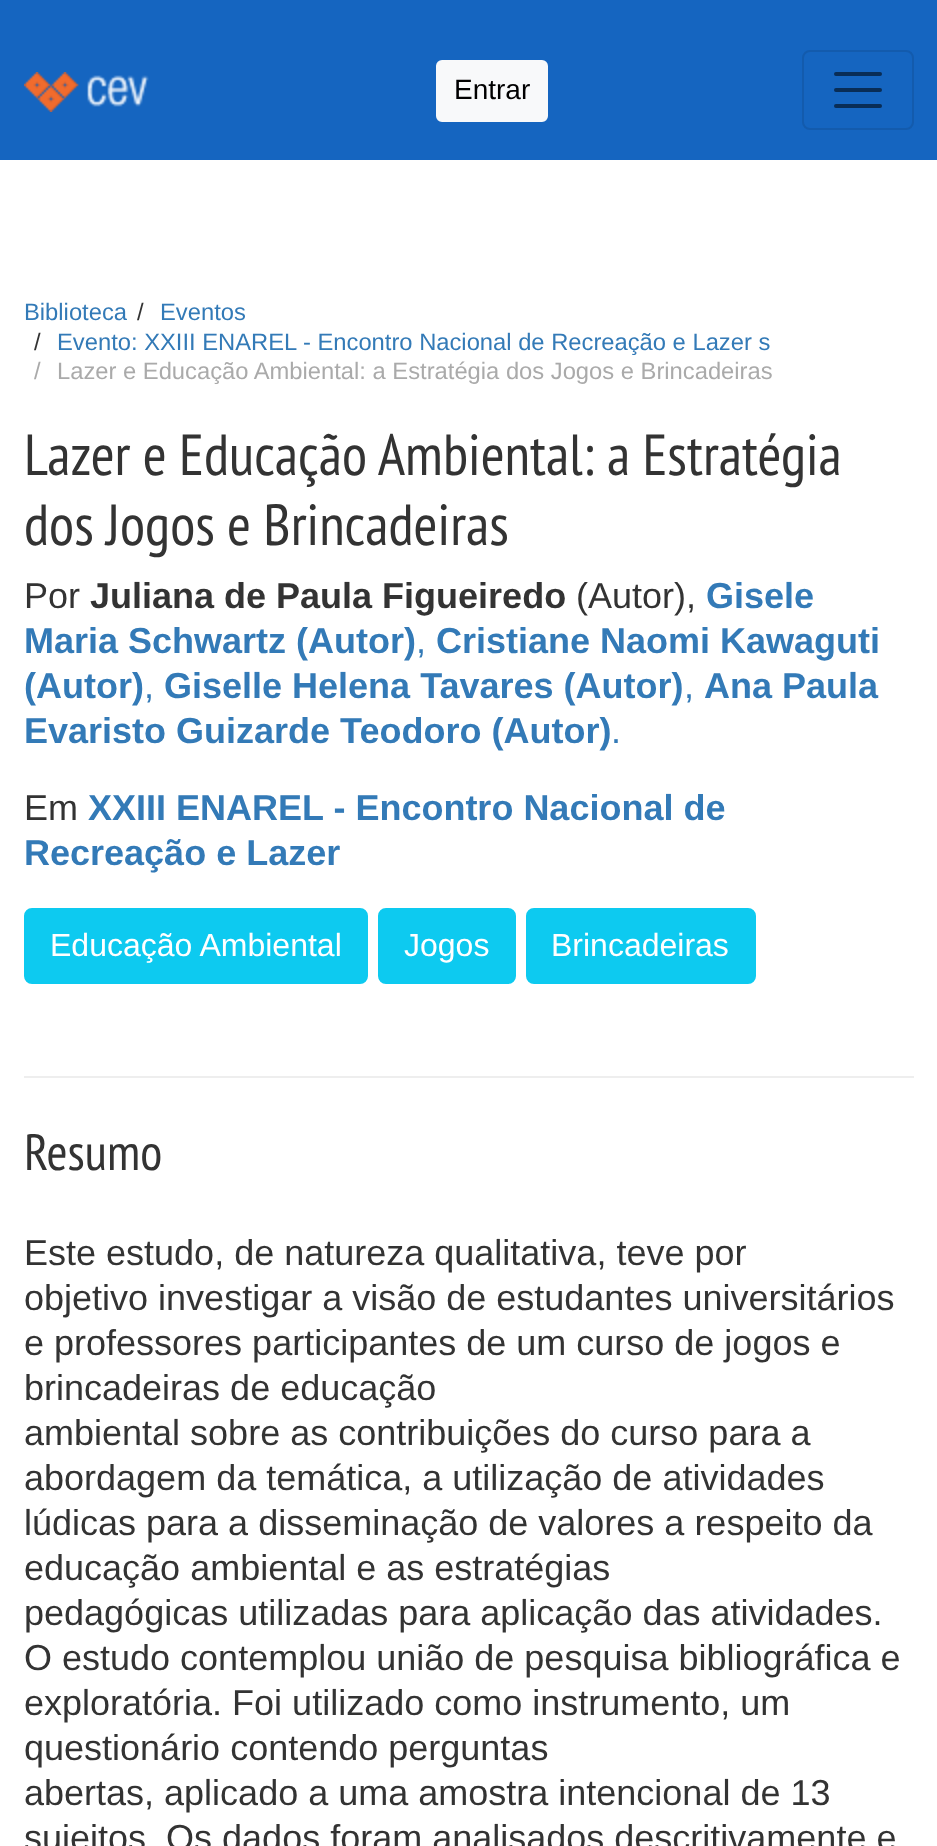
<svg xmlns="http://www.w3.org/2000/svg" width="937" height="1846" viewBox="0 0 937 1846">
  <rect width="100%" height="100%" fill="#fff"/>
  <path d="M0 0h937v160H0z" fill="#1565c0"/>
  <image x="24" y="72" width="125" height="40" href="img/1.png"/>
  <rect x="437" y="61" width="110" height="60" rx="5" fill="#f8f9fa" stroke="#f8f9fa" stroke-width="2"/>
  <rect x="803" y="51" width="110" height="78" rx="7" fill="none" stroke="#135bad" stroke-width="2"/>
  <path d="M836 74H880M836 90H880M836 106H880" fill="none" stroke="#092d56" stroke-width="4" stroke-linecap="round"/>
  <path d="M24 1076h890v2H24z" fill="#eee"/>
  <rect x="25" y="909" width="342" height="74" rx="7" fill="#0dcaf0" stroke="#0dcaf0" stroke-width="2"/>
  <rect x="379" y="909" width="136" height="74" rx="7" fill="#0dcaf0" stroke="#0dcaf0" stroke-width="2"/>
  <rect x="527" y="909" width="228" height="74" rx="7" fill="#0dcaf0" stroke="#0dcaf0" stroke-width="2"/>
  <text x="454" y="99" font-family="Liberation Sans" font-size="28" fill="#000">Entrar</text>
  <text x="24" y="320" font-family="Liberation Sans" font-size="23.75" fill="#337ab7">Biblioteca</text>
  <text x="137" y="320" font-family="Liberation Sans" font-size="23.75" fill="#333">/</text>
  <text x="160" y="320" font-family="Liberation Sans" font-size="23.75" fill="#337ab7">Eventos</text>
  <text x="34" y="350" font-family="Liberation Sans" font-size="23.75" fill="#333">/</text>
  <text x="57" y="350" font-family="Liberation Sans" font-size="23.75" fill="#337ab7">Evento: XXIII ENAREL - Encontro Nacional de Recreação e Lazer s</text>
  <g font-family="Liberation Sans" font-size="23.75" fill="#aaa">
    <text x="34" y="379">/</text>
    <text x="57" y="379">Lazer e Educação Ambiental: a Estratégia dos Jogos e Brincadeiras</text>
  </g>
  <g font-family="PT Sans Narrow" font-size="58" fill="#333">
    <text x="24" y="475">Lazer e Educação Ambiental: a Estratégia</text>
    <text x="24" y="545">dos Jogos e Brincadeiras</text>
  </g>
  <text x="24" y="608" font-family="Liberation Sans" font-size="36" fill="#333">Por</text>
  <text x="90" y="608" font-family="Liberation Sans" font-size="36" font-weight="bold" fill="#333">Juliana de Paula Figueiredo</text>
  <text x="576" y="608" font-family="Liberation Sans" font-size="36" fill="#333">(Autor),</text>
  <g font-family="Liberation Sans" font-size="36" font-weight="bold" fill="#337ab7">
    <text x="706" y="608">Gisele</text>
    <text x="24" y="653">Maria Schwartz (Autor)</text>
  </g>
  <text x="416" y="653" font-family="Liberation Sans" font-size="36" fill="#337ab7">,</text>
  <g font-family="Liberation Sans" font-size="36" font-weight="bold" fill="#337ab7">
    <text x="436" y="653">Cristiane Naomi Kawaguti</text>
    <text x="24" y="698">(Autor)</text>
  </g>
  <text x="144" y="698" font-family="Liberation Sans" font-size="36" fill="#337ab7">,</text>
  <text x="164" y="698" font-family="Liberation Sans" font-size="36" font-weight="bold" fill="#337ab7">Giselle Helena Tavares (Autor)</text>
  <text x="684" y="698" font-family="Liberation Sans" font-size="36" fill="#337ab7">,</text>
  <g font-family="Liberation Sans" font-size="36" font-weight="bold" fill="#337ab7">
    <text x="704" y="698">Ana Paula</text>
    <text x="24" y="743">Evaristo Guizarde Teodoro (Autor)</text>
  </g>
  <text x="611" y="743" font-family="Liberation Sans" font-size="36" fill="#337ab7">.</text>
  <text x="24" y="820" font-family="Liberation Sans" font-size="36" fill="#333">Em</text>
  <g font-family="Liberation Sans" font-size="36" font-weight="bold" fill="#337ab7">
    <text x="88" y="820">XXIII ENAREL - Encontro Nacional de</text>
    <text x="24" y="865">Recreação e Lazer</text>
  </g>
  <g font-family="Liberation Sans" font-size="32" fill="#fff">
    <text x="50" y="956">Educação Ambiental</text>
    <text x="404" y="956">Jogos</text>
    <text x="551" y="956">Brincadeiras</text>
  </g>
  <text x="24" y="1170" font-family="PT Sans Narrow" font-size="51" fill="#333">Resumo</text>
  <g font-family="Liberation Sans" font-size="36" fill="#333">
    <text x="24" y="1265">Este estudo, de natureza qualitativa, teve por</text>
    <text x="24" y="1310">objetivo investigar a visão de estudantes universitários</text>
    <text x="24" y="1355">e professores participantes de um curso de jogos e</text>
    <text x="24" y="1400">brincadeiras de educação</text>
    <text x="24" y="1445">ambiental sobre as contribuições do curso para a</text>
    <text x="24" y="1490">abordagem da temática, a utilização de atividades</text>
    <text x="24" y="1535">lúdicas para a disseminação de valores a respeito da</text>
    <text x="24" y="1580">educação ambiental e as estratégias</text>
    <text x="24" y="1625">pedagógicas utilizadas para aplicação das atividades.</text>
    <text x="24" y="1670">O estudo contemplou união de pesquisa bibliográfica e</text>
    <text x="24" y="1715">exploratória. Foi utilizado como instrumento, um</text>
    <text x="24" y="1760">questionário contendo perguntas</text>
    <text x="24" y="1805">abertas, aplicado a uma amostra intencional de 13</text>
    <text x="24" y="1850">sujeitos. Os dados foram analisados descritivamente e</text>
  </g>
</svg>
